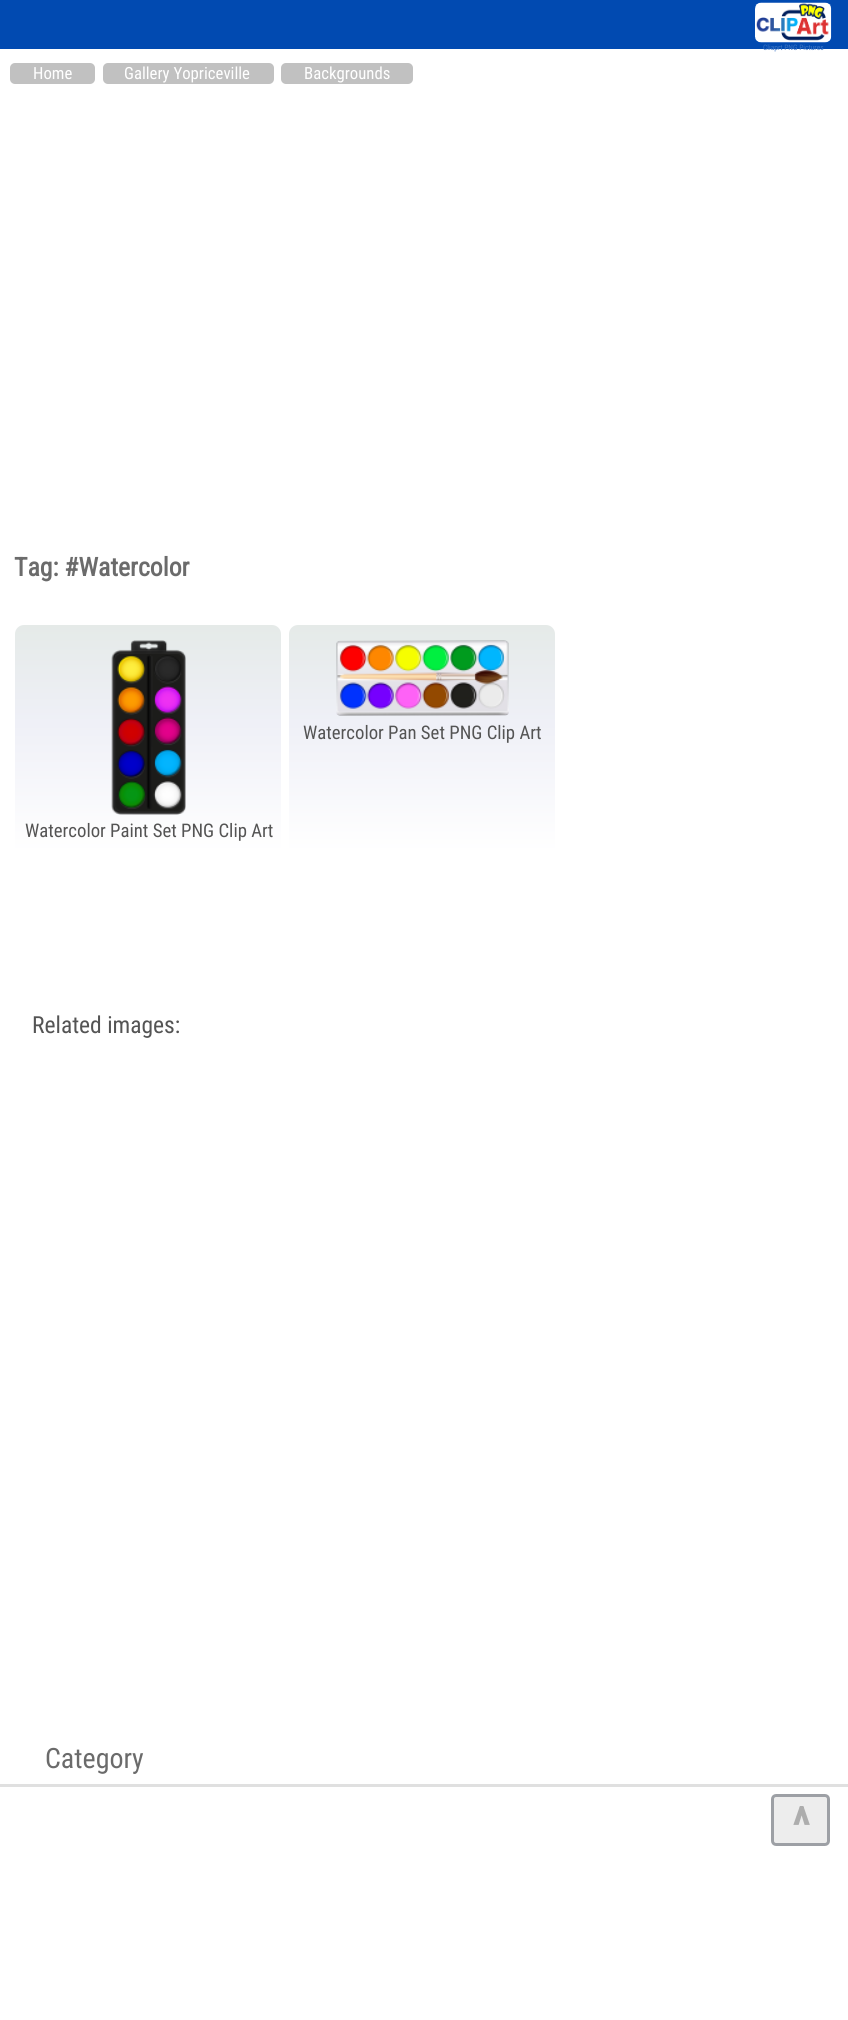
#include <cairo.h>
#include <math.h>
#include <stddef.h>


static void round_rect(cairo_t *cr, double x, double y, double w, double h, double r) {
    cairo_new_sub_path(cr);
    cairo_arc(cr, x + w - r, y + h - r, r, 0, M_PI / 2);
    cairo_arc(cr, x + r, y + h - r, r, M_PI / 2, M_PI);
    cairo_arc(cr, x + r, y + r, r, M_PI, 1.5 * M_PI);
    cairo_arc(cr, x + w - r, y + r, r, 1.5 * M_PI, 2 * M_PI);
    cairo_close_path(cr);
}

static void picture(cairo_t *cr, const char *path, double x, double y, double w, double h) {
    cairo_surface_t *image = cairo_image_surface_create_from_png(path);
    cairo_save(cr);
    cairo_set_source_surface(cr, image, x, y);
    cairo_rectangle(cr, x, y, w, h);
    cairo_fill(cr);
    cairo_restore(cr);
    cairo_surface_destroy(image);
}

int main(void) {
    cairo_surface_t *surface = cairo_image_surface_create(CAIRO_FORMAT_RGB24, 848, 2020);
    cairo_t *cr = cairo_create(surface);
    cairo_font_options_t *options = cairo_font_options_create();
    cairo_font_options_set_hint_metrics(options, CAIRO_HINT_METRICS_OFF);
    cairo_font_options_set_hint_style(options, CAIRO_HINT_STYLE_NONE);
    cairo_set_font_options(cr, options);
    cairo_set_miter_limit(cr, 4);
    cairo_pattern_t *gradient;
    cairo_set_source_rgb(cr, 0.004, 0.29, 0.694);
    cairo_paint(cr);
    cairo_set_source_rgb(cr, 1, 1, 1);
    cairo_rectangle(cr, 0, 49, 848, 1971);
    cairo_fill(cr);
    picture(cr, "img1.png", 755, 2, 77, 41);
    cairo_select_font_face(cr, "Roboto Condensed", CAIRO_FONT_SLANT_NORMAL, CAIRO_FONT_WEIGHT_NORMAL);
    cairo_set_font_size(cr, 7.5);
    cairo_set_source_rgb(cr, 0.235, 0.455, 0.765);
    cairo_move_to(cr, 763, 50);
    cairo_show_text(cr, "Cliaprt PNG Pictures");
    cairo_set_source_rgb(cr, 0.757, 0.757, 0.757);
    round_rect(cr, 10, 63, 85, 21, 5);
    cairo_fill(cr);
    cairo_set_font_size(cr, 16.75);
    cairo_set_source_rgb(cr, 1, 1, 1);
    cairo_move_to(cr, 33, 79);
    cairo_show_text(cr, "Home");
    cairo_set_source_rgb(cr, 0.757, 0.757, 0.757);
    round_rect(cr, 103, 63, 171, 21, 5);
    cairo_fill(cr);
    cairo_set_source_rgb(cr, 1, 1, 1);
    cairo_move_to(cr, 124, 79);
    cairo_show_text(cr, "Gallery Yopriceville");
    cairo_set_source_rgb(cr, 0.757, 0.757, 0.757);
    round_rect(cr, 281, 63, 132, 21, 5);
    cairo_fill(cr);
    cairo_set_source_rgb(cr, 1, 1, 1);
    cairo_move_to(cr, 304, 79);
    cairo_show_text(cr, "Backgrounds");
    cairo_select_font_face(cr, "Roboto Condensed", CAIRO_FONT_SLANT_NORMAL, CAIRO_FONT_WEIGHT_BOLD);
    cairo_set_font_size(cr, 25.75);
    cairo_set_source_rgb(cr, 0.42, 0.42, 0.42);
    cairo_move_to(cr, 14, 576);
    cairo_show_text(cr, "Tag: #Watercolor");
    gradient = cairo_pattern_create_linear(422, 625, 422, 883);
    cairo_pattern_add_color_stop_rgba(gradient, 0, 0.898, 0.918, 0.91, 1);
    cairo_pattern_add_color_stop_rgba(gradient, 0.38, 0.937, 0.941, 0.969, 1);
    cairo_pattern_add_color_stop_rgba(gradient, 0.88, 1, 1, 1, 1);
    cairo_set_source(cr, gradient);
    cairo_pattern_destroy(gradient);
    round_rect(cr, 289, 625, 266, 258, 9);
    cairo_fill(cr);
    picture(cr, "img2.png", 336, 640, 173, 76);
    cairo_select_font_face(cr, "Roboto Condensed", CAIRO_FONT_SLANT_NORMAL, CAIRO_FONT_WEIGHT_NORMAL);
    cairo_set_font_size(cr, 18.75);
    cairo_set_source_rgb(cr, 0.329, 0.329, 0.329);
    cairo_move_to(cr, 303, 739);
    cairo_show_text(cr, "Watercolor Pan Set PNG Clip Art");
    gradient = cairo_pattern_create_linear(148, 625, 148, 883);
    cairo_pattern_add_color_stop_rgba(gradient, 0, 0.898, 0.918, 0.91, 1);
    cairo_pattern_add_color_stop_rgba(gradient, 0.38, 0.937, 0.941, 0.969, 1);
    cairo_pattern_add_color_stop_rgba(gradient, 0.88, 1, 1, 1, 1);
    cairo_set_source(cr, gradient);
    cairo_pattern_destroy(gradient);
    round_rect(cr, 15, 625, 266, 258, 9);
    cairo_fill(cr);
    picture(cr, "img3.png", 111, 640, 75, 175);
    cairo_set_source_rgb(cr, 0.329, 0.329, 0.329);
    cairo_move_to(cr, 25, 837);
    cairo_show_text(cr, "Watercolor Paint Set PNG Clip Art");
    cairo_set_font_size(cr, 23.5);
    cairo_move_to(cr, 32, 1033);
    cairo_show_text(cr, "Related images:");
    cairo_set_source_rgb(cr, 0.878, 0.878, 0.878);
    cairo_rectangle(cr, 0, 1784, 848, 3);
    cairo_fill(cr);
    cairo_set_font_size(cr, 28);
    cairo_set_source_rgb(cr, 0.42, 0.42, 0.42);
    cairo_move_to(cr, 45, 1768);
    cairo_show_text(cr, "Category");
    cairo_set_source_rgb(cr, 0.929, 0.929, 0.929);
    round_rect(cr, 772.5, 1795.5, 56, 49, 3.5);
    cairo_fill_preserve(cr);
    cairo_set_source_rgb(cr, 0.616, 0.627, 0.647);
    cairo_set_line_width(cr, 3);
    cairo_stroke(cr);
    cairo_select_font_face(cr, "Roboto Condensed", CAIRO_FONT_SLANT_NORMAL, CAIRO_FONT_WEIGHT_BOLD);
    cairo_set_font_size(cr, 48);
    cairo_set_source_rgb(cr, 0.678, 0.678, 0.678);
    cairo_move_to(cr, 792, 1842);
    cairo_show_text(cr, "^");
    cairo_surface_write_to_png(surface, "page.png");
    cairo_font_options_destroy(options);
    cairo_destroy(cr);
    cairo_surface_destroy(surface);
    return 0;
}
